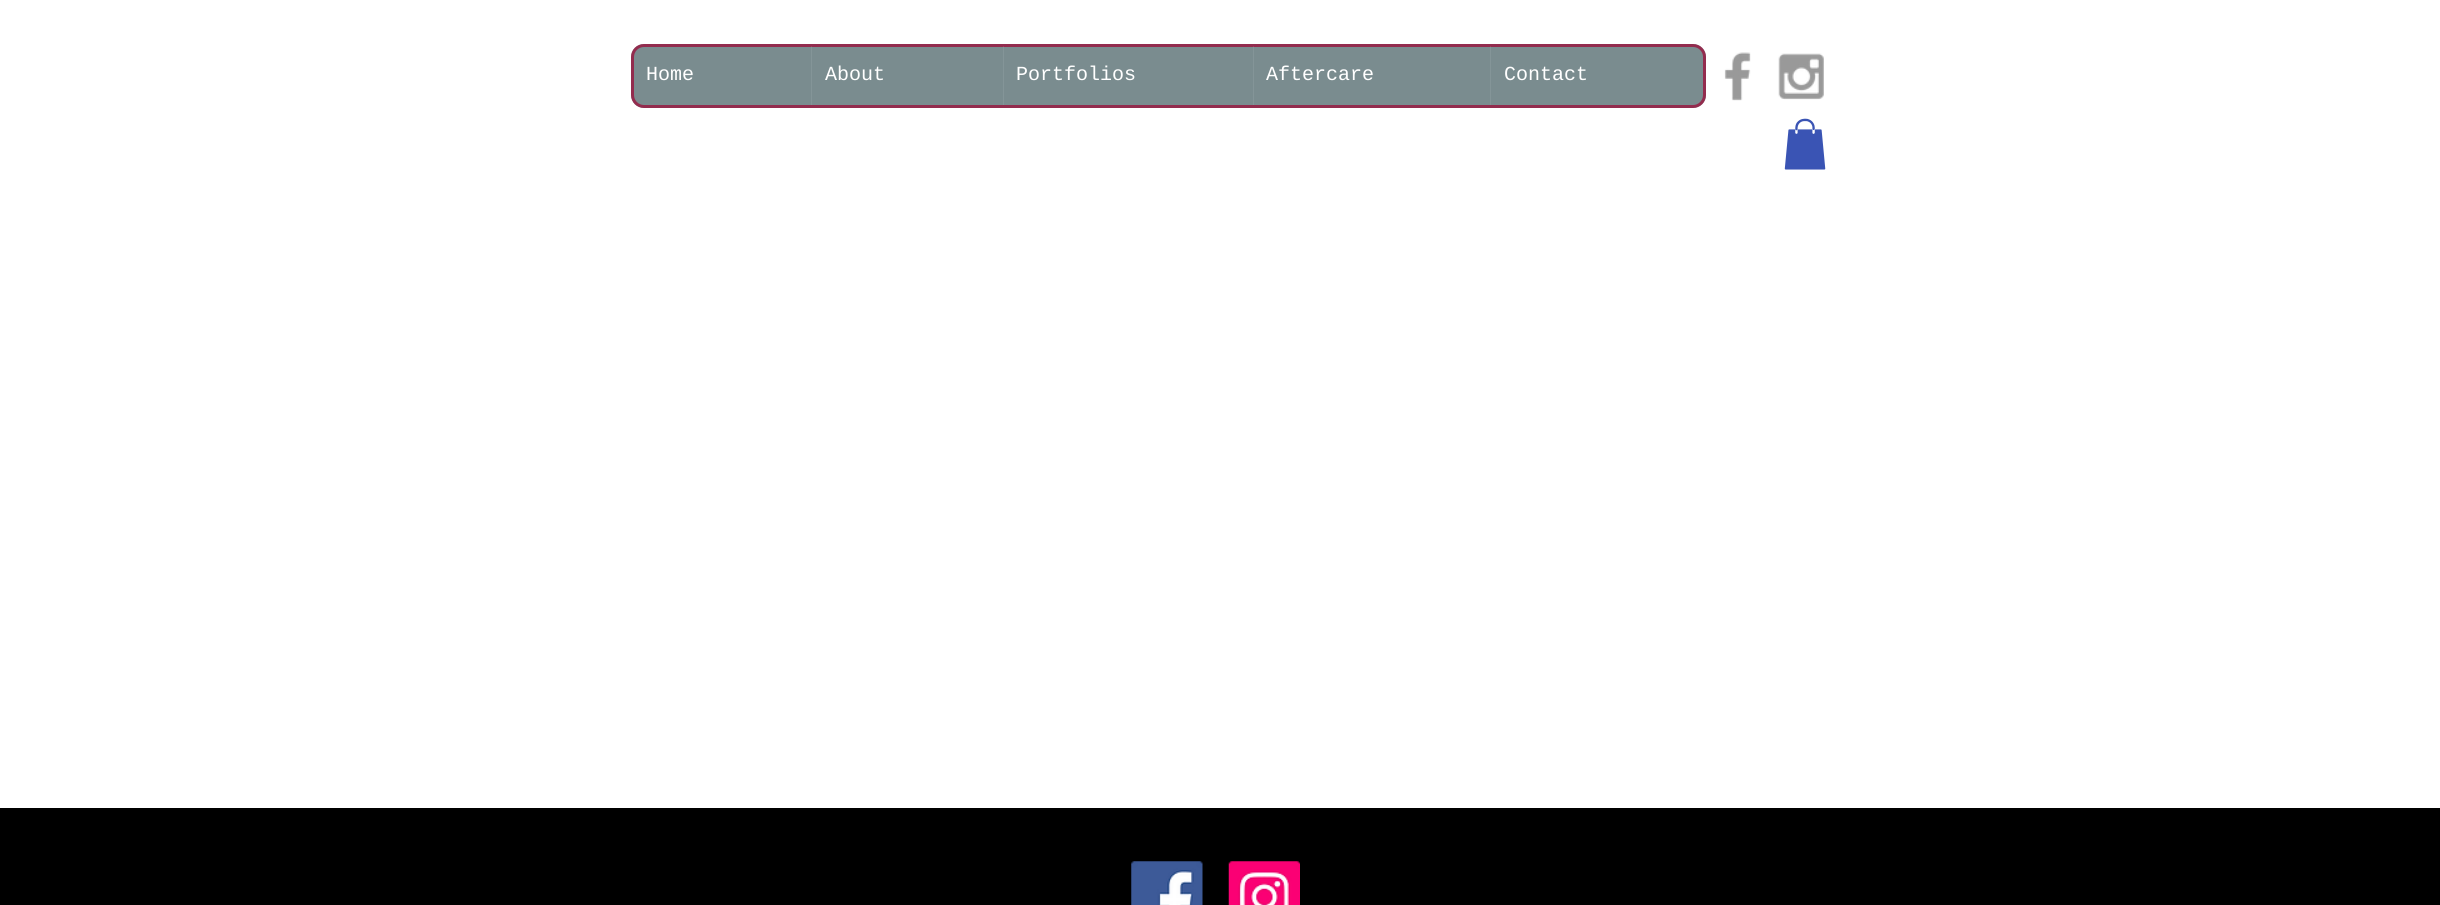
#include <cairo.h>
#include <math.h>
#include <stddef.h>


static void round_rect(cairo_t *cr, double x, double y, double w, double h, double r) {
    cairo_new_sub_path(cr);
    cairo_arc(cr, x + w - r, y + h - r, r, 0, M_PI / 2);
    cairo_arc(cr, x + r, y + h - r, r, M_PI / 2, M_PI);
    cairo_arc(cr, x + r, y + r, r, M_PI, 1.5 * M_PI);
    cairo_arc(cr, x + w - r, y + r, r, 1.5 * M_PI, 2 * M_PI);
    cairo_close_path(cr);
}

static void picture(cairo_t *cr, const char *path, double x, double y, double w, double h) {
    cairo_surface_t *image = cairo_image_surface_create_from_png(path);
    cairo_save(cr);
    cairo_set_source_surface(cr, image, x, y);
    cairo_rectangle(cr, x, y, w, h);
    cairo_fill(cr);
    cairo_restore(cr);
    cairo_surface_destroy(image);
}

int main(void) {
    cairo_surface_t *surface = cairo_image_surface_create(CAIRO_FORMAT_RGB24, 2440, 905);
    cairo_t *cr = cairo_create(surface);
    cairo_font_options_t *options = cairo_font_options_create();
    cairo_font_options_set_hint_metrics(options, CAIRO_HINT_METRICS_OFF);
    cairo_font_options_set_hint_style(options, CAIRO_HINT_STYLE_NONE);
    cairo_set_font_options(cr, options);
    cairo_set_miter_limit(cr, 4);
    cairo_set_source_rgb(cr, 1, 1, 1);
    cairo_paint(cr);
    cairo_set_source_rgb(cr, 0.478, 0.549, 0.561);
    round_rect(cr, 631, 44, 1075, 64, 13);
    cairo_fill(cr);
    round_rect(cr, 632.5, 45.5, 1072, 61, 11.5);
    cairo_set_source_rgba(cr, 0.62, 0.016, 0.2, 0.7);
    cairo_set_line_width(cr, 3);
    cairo_stroke(cr);
    cairo_select_font_face(cr, "Liberation Mono", CAIRO_FONT_SLANT_NORMAL, CAIRO_FONT_WEIGHT_NORMAL);
    cairo_set_font_size(cr, 20);
    cairo_set_source_rgb(cr, 1, 1, 1);
    cairo_move_to(cr, 646, 80);
    cairo_show_text(cr, "Home");
    cairo_set_source_rgba(cr, 1, 1, 1, 0.08);
    cairo_rectangle(cr, 811, 46, 1, 59);
    cairo_fill(cr);
    cairo_set_source_rgb(cr, 1, 1, 1);
    cairo_move_to(cr, 825, 80);
    cairo_show_text(cr, "About");
    cairo_set_source_rgba(cr, 1, 1, 1, 0.08);
    cairo_rectangle(cr, 1003, 46, 1, 59);
    cairo_fill(cr);
    cairo_set_source_rgb(cr, 1, 1, 1);
    cairo_move_to(cr, 1016, 80);
    cairo_show_text(cr, "Portfolios");
    cairo_set_source_rgba(cr, 1, 1, 1, 0.08);
    cairo_rectangle(cr, 1253, 46, 1, 59);
    cairo_fill(cr);
    cairo_set_source_rgb(cr, 1, 1, 1);
    cairo_move_to(cr, 1266, 80);
    cairo_show_text(cr, "Aftercare");
    cairo_set_source_rgba(cr, 1, 1, 1, 0.08);
    cairo_rectangle(cr, 1490, 46, 1, 59);
    cairo_fill(cr);
    cairo_set_source_rgb(cr, 1, 1, 1);
    cairo_move_to(cr, 1504, 80);
    cairo_show_text(cr, "Contact");
    picture(cr, "img1.png", 1724, 52, 27, 49);
    picture(cr, "img2.png", 1778, 53, 46, 47);
    picture(cr, "img3.png", 1784, 118, 42, 52);
    cairo_set_source_rgb(cr, 0, 0, 0);
    cairo_rectangle(cr, 0, 808, 2440, 97);
    cairo_fill(cr);
    picture(cr, "img4.png", 1131, 861, 72, 44);
    picture(cr, "img5.png", 1228, 861, 72, 44);
    cairo_surface_write_to_png(surface, "page.png");
    cairo_font_options_destroy(options);
    cairo_destroy(cr);
    cairo_surface_destroy(surface);
    return 0;
}
